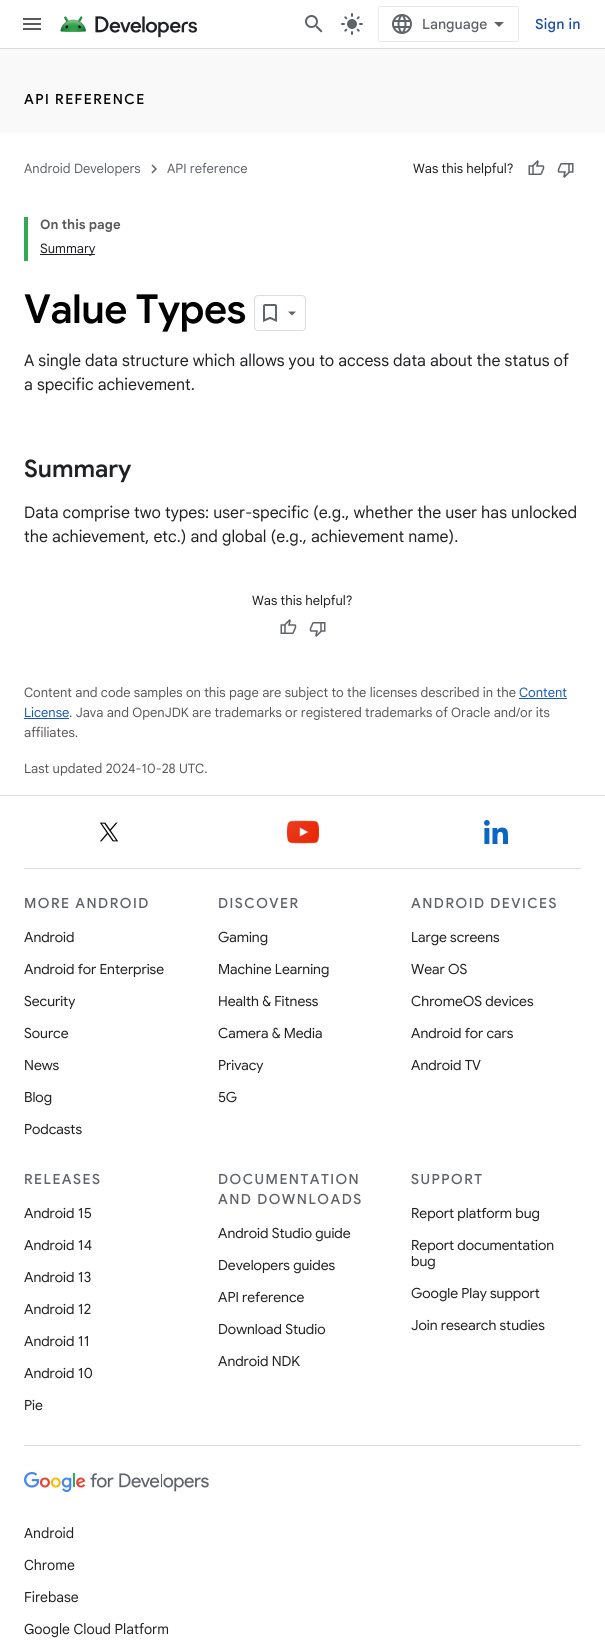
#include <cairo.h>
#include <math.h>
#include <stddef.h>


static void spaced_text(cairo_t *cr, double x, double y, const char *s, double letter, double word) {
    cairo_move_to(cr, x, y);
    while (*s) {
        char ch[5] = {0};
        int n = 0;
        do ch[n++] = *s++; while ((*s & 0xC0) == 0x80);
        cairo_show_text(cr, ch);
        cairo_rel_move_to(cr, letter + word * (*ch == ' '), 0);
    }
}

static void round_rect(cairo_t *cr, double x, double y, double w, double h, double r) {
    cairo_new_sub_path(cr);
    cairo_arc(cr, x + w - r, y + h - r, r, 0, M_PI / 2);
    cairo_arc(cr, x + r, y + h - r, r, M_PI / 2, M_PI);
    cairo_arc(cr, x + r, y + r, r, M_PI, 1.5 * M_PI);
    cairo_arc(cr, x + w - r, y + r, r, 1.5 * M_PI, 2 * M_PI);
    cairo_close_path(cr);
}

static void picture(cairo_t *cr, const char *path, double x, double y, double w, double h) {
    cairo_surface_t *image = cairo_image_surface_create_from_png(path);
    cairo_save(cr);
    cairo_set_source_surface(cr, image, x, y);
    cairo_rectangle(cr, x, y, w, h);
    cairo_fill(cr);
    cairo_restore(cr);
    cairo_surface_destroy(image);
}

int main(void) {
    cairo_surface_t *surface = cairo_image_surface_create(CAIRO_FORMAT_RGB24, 605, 1641);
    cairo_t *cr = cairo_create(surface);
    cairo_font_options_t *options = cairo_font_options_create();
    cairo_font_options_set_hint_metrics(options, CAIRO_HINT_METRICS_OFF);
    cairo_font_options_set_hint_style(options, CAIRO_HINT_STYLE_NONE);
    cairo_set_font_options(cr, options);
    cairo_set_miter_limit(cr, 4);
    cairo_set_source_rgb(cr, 1, 1, 1);
    cairo_paint(cr);
    cairo_set_source_rgb(cr, 0.855, 0.863, 0.878);
    cairo_rectangle(cr, 0, 48, 605, 1);
    cairo_fill(cr);
    picture(cr, "img1.png", 23, 18, 18, 12);
    picture(cr, "img2.png", 60, 16, 137, 22);
    picture(cr, "img3.png", 305, 15, 18, 18);
    picture(cr, "img4.png", 341, 13, 22, 22);
    round_rect(cr, 378.5, 6.5, 140, 35, 1.5);
    cairo_set_source_rgb(cr, 0.91, 0.918, 0.929);
    cairo_set_line_width(cr, 1);
    cairo_stroke(cr);
    picture(cr, "img5.png", 392, 14, 20, 20);
    cairo_select_font_face(cr, "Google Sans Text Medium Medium", CAIRO_FONT_SLANT_NORMAL, CAIRO_FONT_WEIGHT_NORMAL);
    cairo_set_font_size(cr, 14);
    cairo_set_source_rgb(cr, 0.373, 0.388, 0.408);
    cairo_move_to(cr, 422, 29);
    cairo_show_text(cr, "Language");
    cairo_new_path(cr);
    cairo_move_to(cr, 499, 27);
    cairo_line_to(cr, 494, 22);
    cairo_line_to(cr, 504, 22);
    cairo_close_path(cr);
    cairo_fill(cr);
    cairo_set_source_rgb(cr, 0.09, 0.306, 0.651);
    spaced_text(cr, 535, 29, "Sign in", 0.25, 0);
    cairo_set_source_rgb(cr, 0.973, 0.976, 0.98);
    cairo_rectangle(cr, 0, 49, 605, 84);
    cairo_fill(cr);
    cairo_select_font_face(cr, "Google Sans Medium", CAIRO_FONT_SLANT_NORMAL, CAIRO_FONT_WEIGHT_NORMAL);
    cairo_set_source_rgb(cr, 0, 0, 0);
    spaced_text(cr, 24, 104, "API REFERENCE", 1.5, 0);
    cairo_select_font_face(cr, "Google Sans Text", CAIRO_FONT_SLANT_NORMAL, CAIRO_FONT_WEIGHT_NORMAL);
    cairo_set_font_size(cr, 13);
    cairo_set_source_rgb(cr, 0.373, 0.388, 0.408);
    cairo_move_to(cr, 24, 173);
    cairo_show_text(cr, "Android Developers");
    picture(cr, "img6.png", 151, 164, 6, 10);
    cairo_move_to(cr, 167, 173);
    cairo_show_text(cr, "API reference");
    cairo_set_source_rgb(cr, 0.125, 0.129, 0.141);
    cairo_move_to(cr, 413, 173);
    cairo_show_text(cr, "Was this helpful?");
    picture(cr, "img7.png", 528, 160, 17, 15);
    picture(cr, "img8.png", 557, 163, 17, 15);
    cairo_set_source_rgb(cr, 0.204, 0.659, 0.325);
    cairo_rectangle(cr, 24, 217, 4, 44);
    cairo_fill(cr);
    cairo_select_font_face(cr, "Google Sans Text", CAIRO_FONT_SLANT_NORMAL, CAIRO_FONT_WEIGHT_BOLD);
    cairo_set_source_rgb(cr, 0.349, 0.349, 0.349);
    cairo_move_to(cr, 40, 229);
    cairo_show_text(cr, "On this page");
    cairo_set_source_rgb(cr, 0.125, 0.129, 0.141);
    cairo_rectangle(cr, 40, 254, 55, 1);
    cairo_fill(cr);
    cairo_select_font_face(cr, "Google Sans Text", CAIRO_FONT_SLANT_NORMAL, CAIRO_FONT_WEIGHT_NORMAL);
    cairo_move_to(cr, 40, 253);
    cairo_show_text(cr, "Summary");
    cairo_select_font_face(cr, "Google Sans SemiBold", CAIRO_FONT_SLANT_NORMAL, CAIRO_FONT_WEIGHT_NORMAL);
    cairo_set_font_size(cr, 40);
    cairo_set_source_rgb(cr, 0, 0, 0);
    spaced_text(cr, 24, 323, "Value Types", -0.5, 0);
    round_rect(cr, 254.5, 295.5, 51, 35, 3.5);
    cairo_set_source_rgb(cr, 0.855, 0.863, 0.878);
    cairo_stroke(cr);
    picture(cr, "img9.png", 263, 304, 14, 18);
    cairo_set_source_rgb(cr, 0.373, 0.388, 0.408);
    cairo_new_path(cr);
    cairo_move_to(cr, 288, 311.5);
    cairo_line_to(cr, 296, 311.5);
    cairo_line_to(cr, 292, 315.5);
    cairo_close_path(cr);
    cairo_fill(cr);
    cairo_select_font_face(cr, "Google Sans Text", CAIRO_FONT_SLANT_NORMAL, CAIRO_FONT_WEIGHT_NORMAL);
    cairo_set_font_size(cr, 16);
    cairo_set_source_rgb(cr, 0.125, 0.129, 0.141);
    cairo_move_to(cr, 24, 366);
    cairo_show_text(cr, "A single data structure which allows you to access data about the status of");
    cairo_move_to(cr, 24, 390);
    cairo_show_text(cr, "a specific achievement.");
    cairo_select_font_face(cr, "Google Sans SemiBold", CAIRO_FONT_SLANT_NORMAL, CAIRO_FONT_WEIGHT_NORMAL);
    cairo_set_font_size(cr, 24);
    cairo_move_to(cr, 24, 477);
    cairo_show_text(cr, "Summary");
    cairo_select_font_face(cr, "Google Sans Text", CAIRO_FONT_SLANT_NORMAL, CAIRO_FONT_WEIGHT_NORMAL);
    cairo_set_font_size(cr, 16);
    cairo_move_to(cr, 24, 518);
    cairo_show_text(cr, "Data comprise two types: user-specific (e.g., whether the user has unlocked");
    cairo_move_to(cr, 24, 542);
    cairo_show_text(cr, "the achievement, etc.) and global (e.g., achievement name).");
    cairo_set_font_size(cr, 13);
    cairo_move_to(cr, 252, 605);
    cairo_show_text(cr, "Was this helpful?");
    picture(cr, "img7.png", 280, 619, 17, 15);
    picture(cr, "img8.png", 309, 622, 17, 15);
    cairo_set_source_rgb(cr, 0.349, 0.349, 0.349);
    cairo_move_to(cr, 24, 697);
    cairo_show_text(cr, "Content and code samples on this page are subject to the licenses described in the");
    cairo_set_source_rgb(cr, 0.094, 0.353, 0.737);
    cairo_move_to(cr, 519, 697);
    cairo_show_text(cr, "Content");
    cairo_rectangle(cr, 519, 698, 48, 1);
    cairo_fill(cr);
    cairo_move_to(cr, 24, 717);
    cairo_show_text(cr, "License");
    cairo_rectangle(cr, 24, 718, 45, 1);
    cairo_fill(cr);
    cairo_set_source_rgb(cr, 0.349, 0.349, 0.349);
    cairo_move_to(cr, 69, 717);
    cairo_show_text(cr, ". Java and OpenJDK are trademarks or registered trademarks of Oracle and/or its");
    cairo_move_to(cr, 24, 737);
    cairo_show_text(cr, "affiliates.");
    cairo_move_to(cr, 24, 773);
    cairo_show_text(cr, "Last updated 2024-10-28 UTC.");
    cairo_set_source_rgb(cr, 0.855, 0.863, 0.878);
    cairo_rectangle(cr, 0, 795, 605, 1);
    cairo_fill(cr);
    cairo_rectangle(cr, 24, 868, 557, 1);
    cairo_fill(cr);
    picture(cr, "img10.png", 99, 822, 20, 20);
    picture(cr, "img11.png", 287, 820, 32, 24);
    picture(cr, "img12.png", 484, 820, 24, 24);
    cairo_rectangle(cr, 24, 1445, 557, 1);
    cairo_fill(cr);
    cairo_select_font_face(cr, "Google Sans Medium", CAIRO_FONT_SLANT_NORMAL, CAIRO_FONT_WEIGHT_NORMAL);
    cairo_set_font_size(cr, 14);
    cairo_set_source_rgb(cr, 0.373, 0.388, 0.408);
    spaced_text(cr, 24, 908, "MORE ANDROID", 1.5, 0);
    cairo_select_font_face(cr, "Google Sans", CAIRO_FONT_SLANT_NORMAL, CAIRO_FONT_WEIGHT_NORMAL);
    cairo_set_source_rgb(cr, 0.125, 0.129, 0.141);
    cairo_move_to(cr, 24, 942);
    cairo_show_text(cr, "Android");
    cairo_move_to(cr, 24, 974);
    cairo_show_text(cr, "Android for Enterprise");
    cairo_move_to(cr, 24, 1006);
    cairo_show_text(cr, "Security");
    cairo_move_to(cr, 24, 1038);
    cairo_show_text(cr, "Source");
    cairo_move_to(cr, 24, 1070);
    cairo_show_text(cr, "News");
    cairo_move_to(cr, 24, 1102);
    cairo_show_text(cr, "Blog");
    cairo_move_to(cr, 24, 1134);
    cairo_show_text(cr, "Podcasts");
    cairo_select_font_face(cr, "Google Sans Medium", CAIRO_FONT_SLANT_NORMAL, CAIRO_FONT_WEIGHT_NORMAL);
    cairo_set_source_rgb(cr, 0.373, 0.388, 0.408);
    spaced_text(cr, 218, 908, "DISCOVER", 1.5, 0);
    cairo_select_font_face(cr, "Google Sans", CAIRO_FONT_SLANT_NORMAL, CAIRO_FONT_WEIGHT_NORMAL);
    cairo_set_source_rgb(cr, 0.125, 0.129, 0.141);
    cairo_move_to(cr, 218, 942);
    cairo_show_text(cr, "Gaming");
    cairo_move_to(cr, 218, 974);
    cairo_show_text(cr, "Machine Learning");
    cairo_move_to(cr, 218, 1006);
    cairo_show_text(cr, "Health & Fitness");
    cairo_move_to(cr, 218, 1038);
    cairo_show_text(cr, "Camera & Media");
    cairo_move_to(cr, 218, 1070);
    cairo_show_text(cr, "Privacy");
    cairo_move_to(cr, 218, 1102);
    cairo_show_text(cr, "5G");
    cairo_select_font_face(cr, "Google Sans Medium", CAIRO_FONT_SLANT_NORMAL, CAIRO_FONT_WEIGHT_NORMAL);
    cairo_set_source_rgb(cr, 0.373, 0.388, 0.408);
    spaced_text(cr, 411, 908, "ANDROID DEVICES", 1.5, 0);
    cairo_select_font_face(cr, "Google Sans", CAIRO_FONT_SLANT_NORMAL, CAIRO_FONT_WEIGHT_NORMAL);
    cairo_set_source_rgb(cr, 0.125, 0.129, 0.141);
    cairo_move_to(cr, 411, 942);
    cairo_show_text(cr, "Large screens");
    cairo_move_to(cr, 411, 974);
    cairo_show_text(cr, "Wear OS");
    cairo_move_to(cr, 411, 1006);
    cairo_show_text(cr, "ChromeOS devices");
    cairo_move_to(cr, 411, 1038);
    cairo_show_text(cr, "Android for cars");
    cairo_move_to(cr, 411, 1070);
    cairo_show_text(cr, "Android TV");
    cairo_select_font_face(cr, "Google Sans Medium", CAIRO_FONT_SLANT_NORMAL, CAIRO_FONT_WEIGHT_NORMAL);
    cairo_set_source_rgb(cr, 0.373, 0.388, 0.408);
    spaced_text(cr, 24, 1184, "RELEASES", 1.5, 0);
    cairo_select_font_face(cr, "Google Sans", CAIRO_FONT_SLANT_NORMAL, CAIRO_FONT_WEIGHT_NORMAL);
    cairo_set_source_rgb(cr, 0.125, 0.129, 0.141);
    cairo_move_to(cr, 24, 1218);
    cairo_show_text(cr, "Android 15");
    cairo_move_to(cr, 24, 1250);
    cairo_show_text(cr, "Android 14");
    cairo_move_to(cr, 24, 1282);
    cairo_show_text(cr, "Android 13");
    cairo_move_to(cr, 24, 1314);
    cairo_show_text(cr, "Android 12");
    cairo_move_to(cr, 24, 1346);
    cairo_show_text(cr, "Android 11");
    cairo_move_to(cr, 24, 1378);
    cairo_show_text(cr, "Android 10");
    cairo_move_to(cr, 24, 1410);
    cairo_show_text(cr, "Pie");
    cairo_select_font_face(cr, "Google Sans Medium", CAIRO_FONT_SLANT_NORMAL, CAIRO_FONT_WEIGHT_NORMAL);
    cairo_set_source_rgb(cr, 0.373, 0.388, 0.408);
    spaced_text(cr, 218, 1184, "DOCUMENTATION", 1.5, 0);
    spaced_text(cr, 218, 1204, "AND DOWNLOADS", 1.5, 0);
    cairo_select_font_face(cr, "Google Sans", CAIRO_FONT_SLANT_NORMAL, CAIRO_FONT_WEIGHT_NORMAL);
    cairo_set_source_rgb(cr, 0.125, 0.129, 0.141);
    cairo_move_to(cr, 218, 1238);
    cairo_show_text(cr, "Android Studio guide");
    cairo_move_to(cr, 218, 1270);
    cairo_show_text(cr, "Developers guides");
    cairo_move_to(cr, 218, 1302);
    cairo_show_text(cr, "API reference");
    cairo_move_to(cr, 218, 1334);
    cairo_show_text(cr, "Download Studio");
    cairo_move_to(cr, 218, 1366);
    cairo_show_text(cr, "Android NDK");
    cairo_select_font_face(cr, "Google Sans Medium", CAIRO_FONT_SLANT_NORMAL, CAIRO_FONT_WEIGHT_NORMAL);
    cairo_set_source_rgb(cr, 0.373, 0.388, 0.408);
    spaced_text(cr, 411, 1184, "SUPPORT", 1.5, 0);
    cairo_select_font_face(cr, "Google Sans", CAIRO_FONT_SLANT_NORMAL, CAIRO_FONT_WEIGHT_NORMAL);
    cairo_set_source_rgb(cr, 0.125, 0.129, 0.141);
    cairo_move_to(cr, 411, 1218);
    cairo_show_text(cr, "Report platform bug");
    cairo_move_to(cr, 411, 1250);
    cairo_show_text(cr, "Report documentation");
    cairo_move_to(cr, 411, 1266);
    cairo_show_text(cr, "bug");
    cairo_move_to(cr, 411, 1298);
    cairo_show_text(cr, "Google Play support");
    cairo_move_to(cr, 411, 1330);
    cairo_show_text(cr, "Join research studies");
    picture(cr, "img13.png", 24, 1472, 185, 20);
    cairo_select_font_face(cr, "Google Sans Text", CAIRO_FONT_SLANT_NORMAL, CAIRO_FONT_WEIGHT_NORMAL);
    cairo_move_to(cr, 24, 1538);
    cairo_show_text(cr, "Android");
    cairo_move_to(cr, 24, 1570);
    cairo_show_text(cr, "Chrome");
    cairo_move_to(cr, 24, 1602);
    cairo_show_text(cr, "Firebase");
    cairo_move_to(cr, 24, 1634);
    cairo_show_text(cr, "Google Cloud Platform");
    cairo_surface_write_to_png(surface, "page.png");
    cairo_font_options_destroy(options);
    cairo_destroy(cr);
    cairo_surface_destroy(surface);
    return 0;
}
